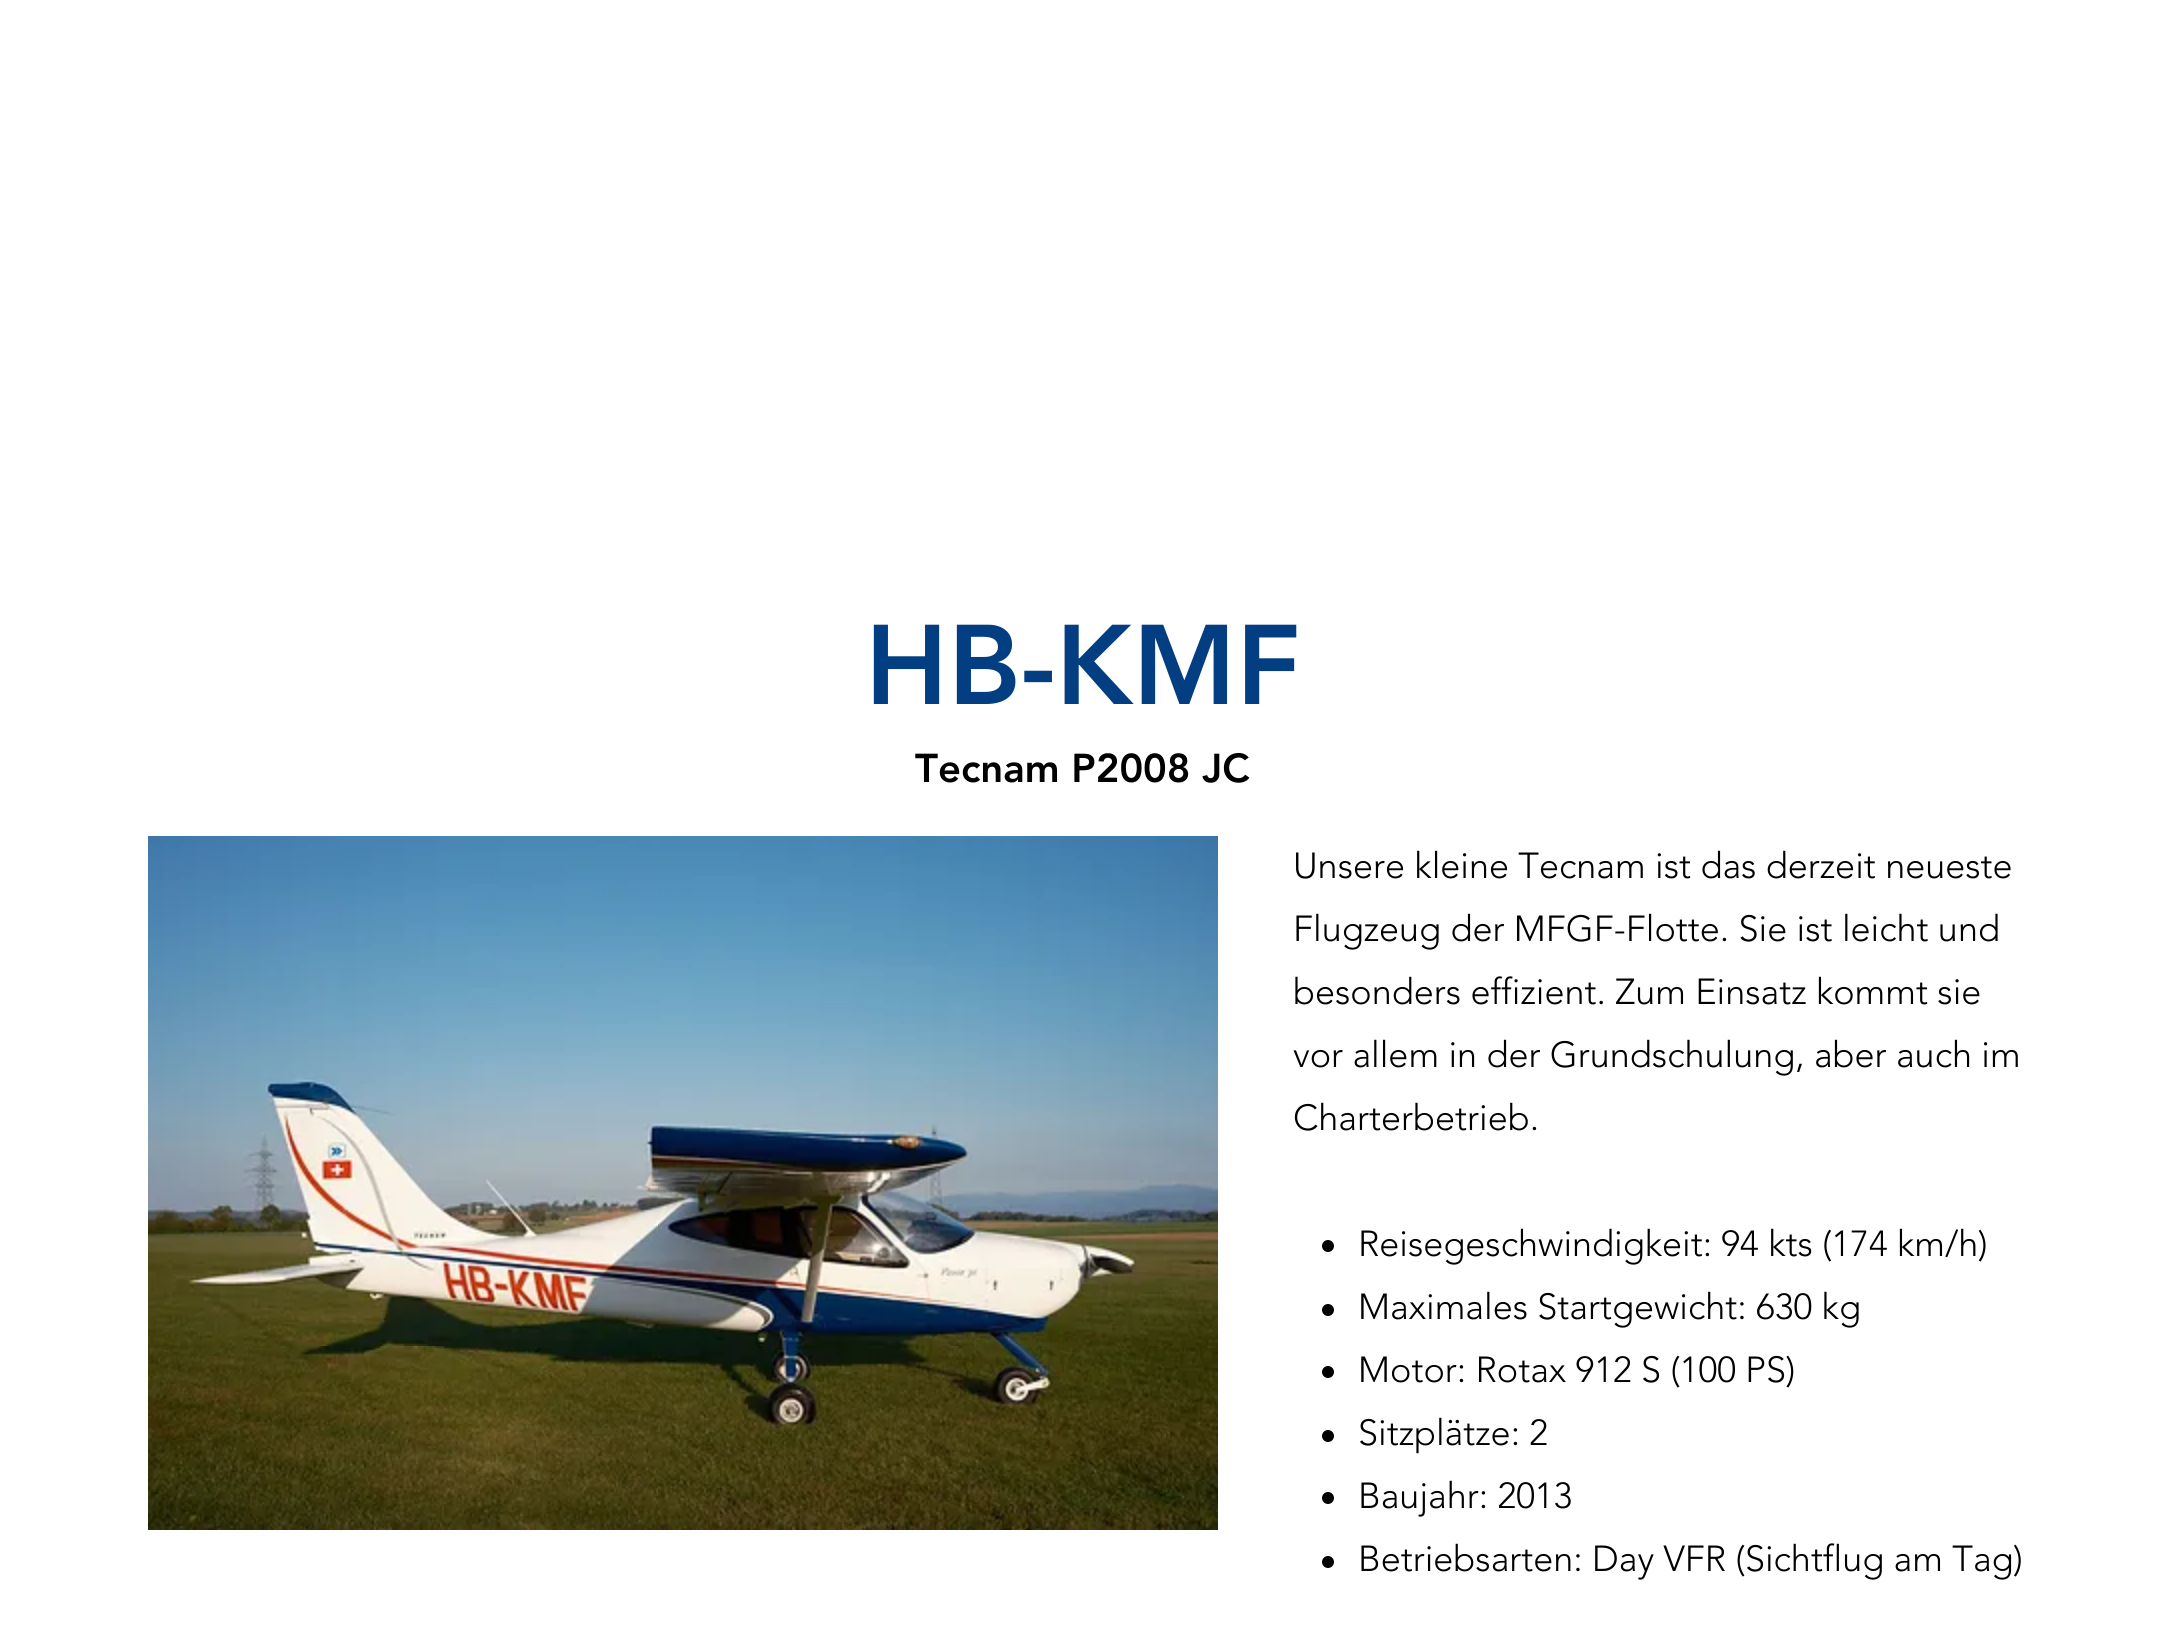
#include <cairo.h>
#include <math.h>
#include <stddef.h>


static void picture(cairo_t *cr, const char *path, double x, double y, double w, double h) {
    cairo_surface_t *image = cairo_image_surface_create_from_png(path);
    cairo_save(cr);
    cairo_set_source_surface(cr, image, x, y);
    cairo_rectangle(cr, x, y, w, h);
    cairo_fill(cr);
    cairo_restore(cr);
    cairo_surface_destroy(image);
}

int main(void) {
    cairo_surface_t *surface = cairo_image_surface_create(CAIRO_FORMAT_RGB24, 2165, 1645);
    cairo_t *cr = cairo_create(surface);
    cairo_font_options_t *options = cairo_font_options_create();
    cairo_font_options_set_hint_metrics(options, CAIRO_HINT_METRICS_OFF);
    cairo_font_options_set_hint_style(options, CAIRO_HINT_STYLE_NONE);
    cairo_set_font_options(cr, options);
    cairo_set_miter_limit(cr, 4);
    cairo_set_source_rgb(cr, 1, 1, 1);
    cairo_paint(cr);
    cairo_select_font_face(cr, "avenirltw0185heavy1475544 Black", CAIRO_FONT_SLANT_NORMAL, CAIRO_FONT_WEIGHT_NORMAL);
    cairo_set_font_size(cr, 112);
    cairo_set_source_rgb(cr, 0.008, 0.243, 0.506);
    cairo_move_to(cr, 865, 704);
    cairo_show_text(cr, "HB-KMF");
    cairo_set_font_size(cr, 40);
    cairo_set_source_rgb(cr, 0, 0, 0);
    cairo_move_to(cr, 915, 782);
    cairo_show_text(cr, "Tecnam P2008 JC");
    picture(cr, "img1.png", 148, 836, 1070, 694);
    cairo_select_font_face(cr, "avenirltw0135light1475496 Light", CAIRO_FONT_SLANT_NORMAL, CAIRO_FONT_WEIGHT_NORMAL);
    cairo_set_font_size(cr, 36);
    cairo_move_to(cr, 1293, 878);
    cairo_show_text(cr, "Unsere kleine Tecnam ist das derzeit neueste");
    cairo_move_to(cr, 1293, 941);
    cairo_show_text(cr, "Flugzeug der MFGF-Flotte. Sie ist leicht und");
    cairo_move_to(cr, 1293, 1004);
    cairo_show_text(cr, "besonders effizient. Zum Einsatz kommt sie");
    cairo_move_to(cr, 1293, 1067);
    cairo_show_text(cr, "vor allem in der Grundschulung, aber auch im");
    cairo_move_to(cr, 1293, 1130);
    cairo_show_text(cr, "Charterbetrieb.");
    cairo_new_path(cr);
    cairo_arc(cr, 1328, 1246, 6, 0, 2 * M_PI);
    cairo_fill(cr);
    cairo_move_to(cr, 1358, 1256);
    cairo_show_text(cr, "Reisegeschwindigkeit: 94 kts (174 km/h)");
    cairo_new_path(cr);
    cairo_arc(cr, 1328, 1310, 6, 0, 2 * M_PI);
    cairo_fill(cr);
    cairo_move_to(cr, 1358, 1319);
    cairo_show_text(cr, "Maximales Startgewicht: 630 kg");
    cairo_new_path(cr);
    cairo_arc(cr, 1328, 1372, 6, 0, 2 * M_PI);
    cairo_fill(cr);
    cairo_move_to(cr, 1358, 1382);
    cairo_show_text(cr, "Motor: Rotax 912 S (100 PS)");
    cairo_new_path(cr);
    cairo_arc(cr, 1328, 1436, 6, 0, 2 * M_PI);
    cairo_fill(cr);
    cairo_move_to(cr, 1358, 1445);
    cairo_show_text(cr, "Sitzplätze: 2");
    cairo_new_path(cr);
    cairo_arc(cr, 1328, 1498, 6, 0, 2 * M_PI);
    cairo_fill(cr);
    cairo_move_to(cr, 1358, 1508);
    cairo_show_text(cr, "Baujahr: 2013");
    cairo_new_path(cr);
    cairo_arc(cr, 1328, 1562, 6, 0, 2 * M_PI);
    cairo_fill(cr);
    cairo_move_to(cr, 1358, 1571);
    cairo_show_text(cr, "Betriebsarten: Day VFR (Sichtflug am Tag)");
    cairo_surface_write_to_png(surface, "page.png");
    cairo_font_options_destroy(options);
    cairo_destroy(cr);
    cairo_surface_destroy(surface);
    return 0;
}
